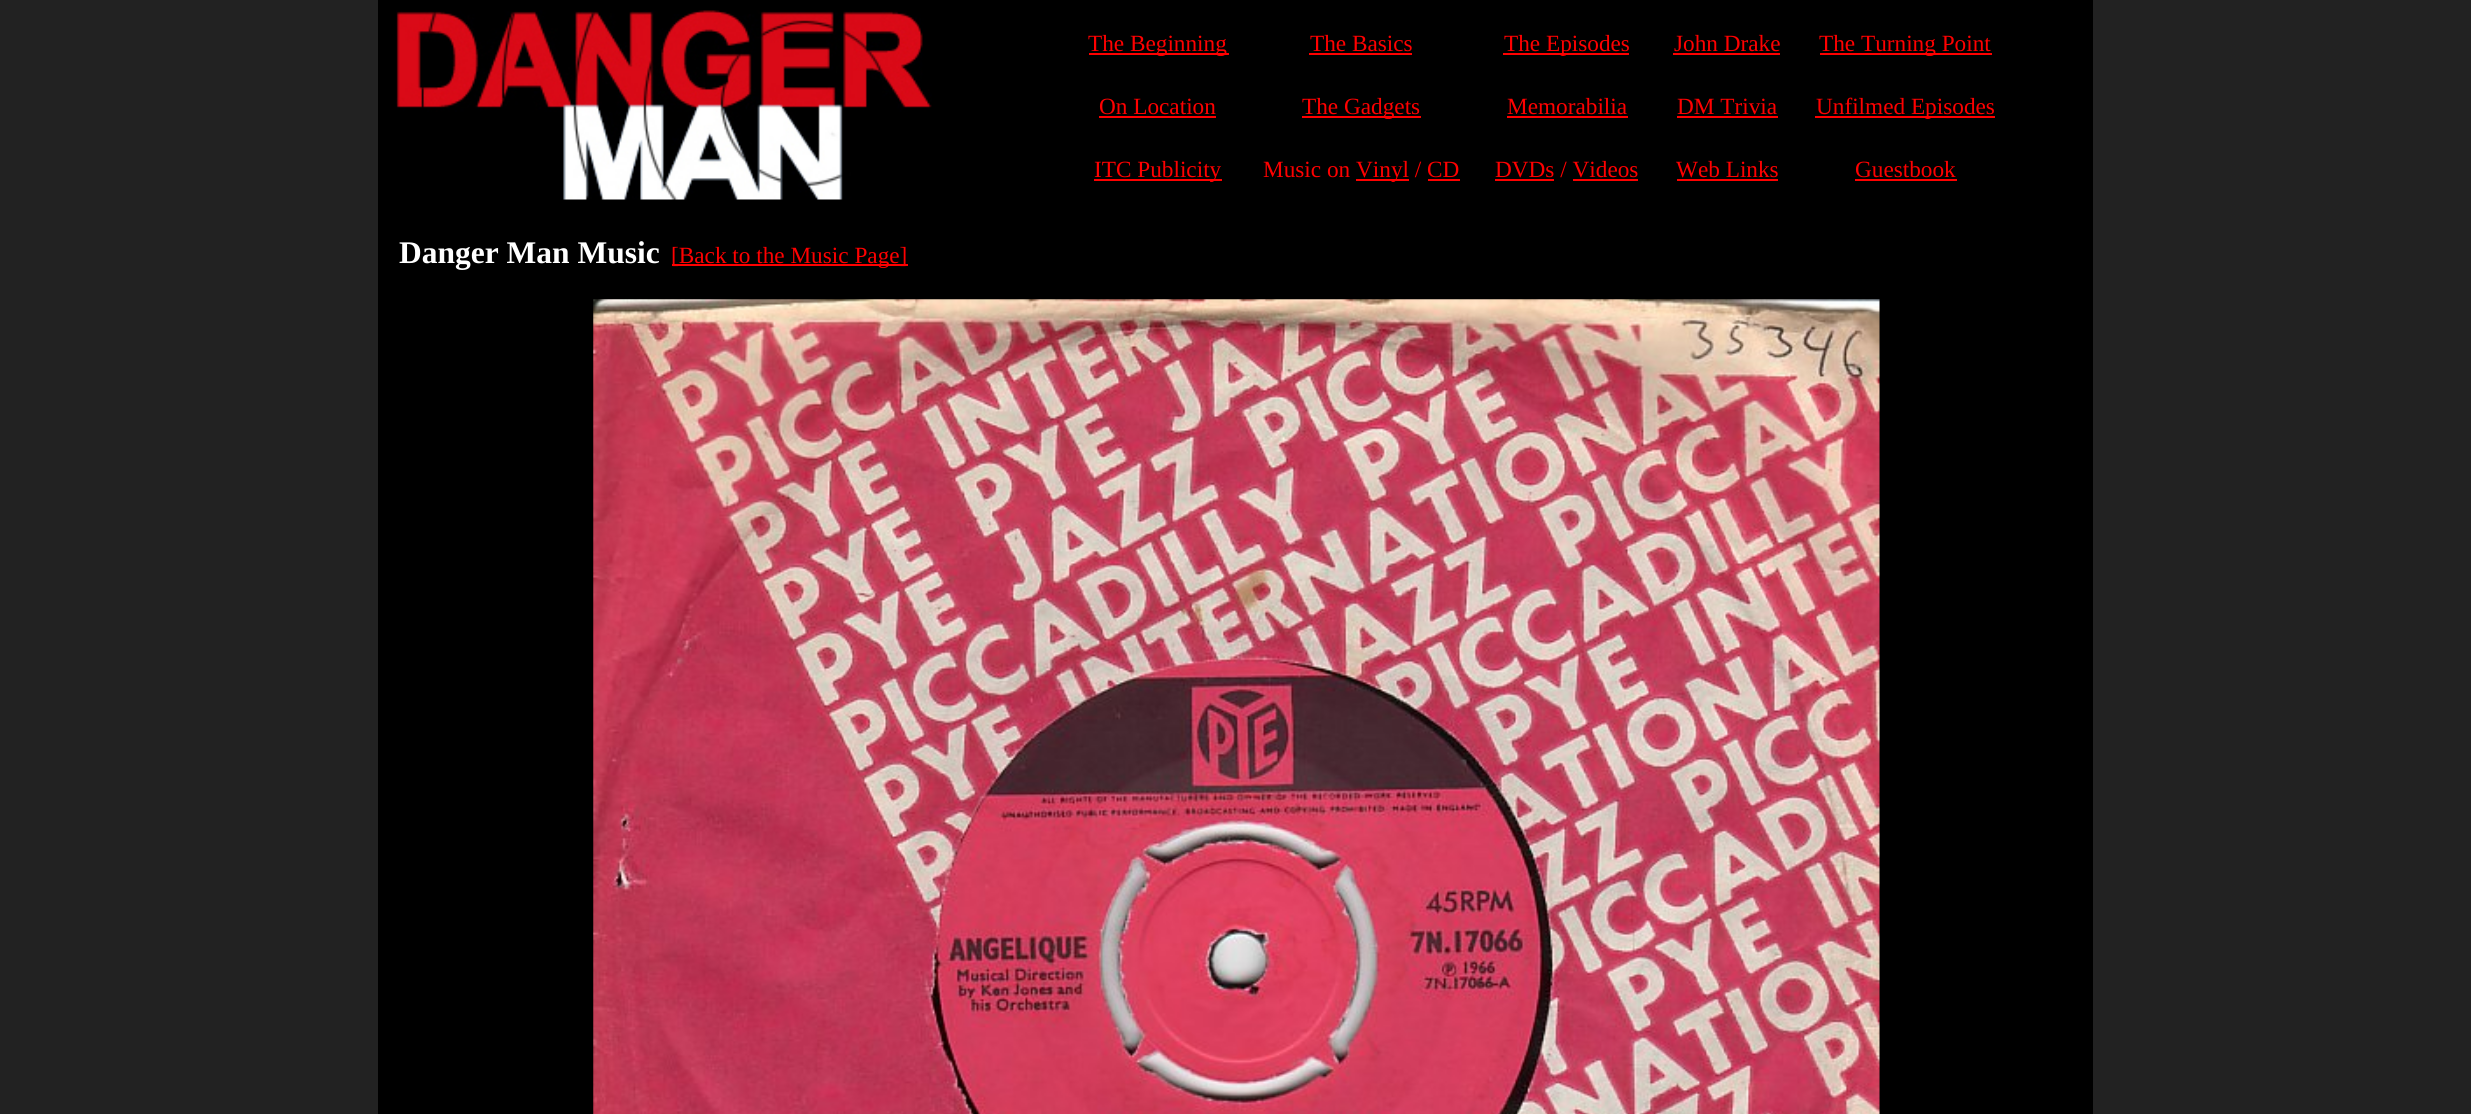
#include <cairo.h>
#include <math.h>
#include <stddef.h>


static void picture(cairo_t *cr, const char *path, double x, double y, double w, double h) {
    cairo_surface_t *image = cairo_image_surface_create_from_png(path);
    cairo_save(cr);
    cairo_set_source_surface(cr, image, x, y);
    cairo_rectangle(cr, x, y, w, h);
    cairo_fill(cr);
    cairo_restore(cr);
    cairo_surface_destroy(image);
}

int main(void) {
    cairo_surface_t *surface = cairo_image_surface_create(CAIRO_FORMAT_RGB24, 2471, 1114);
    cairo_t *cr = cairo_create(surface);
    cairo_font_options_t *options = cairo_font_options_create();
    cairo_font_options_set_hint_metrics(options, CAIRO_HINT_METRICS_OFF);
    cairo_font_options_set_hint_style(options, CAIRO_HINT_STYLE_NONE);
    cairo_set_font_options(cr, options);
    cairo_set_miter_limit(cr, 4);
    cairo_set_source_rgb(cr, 0.133, 0.133, 0.133);
    cairo_paint(cr);
    cairo_set_source_rgb(cr, 0, 0, 0);
    cairo_rectangle(cr, 378, 0, 1715, 1114);
    cairo_fill(cr);
    picture(cr, "img1.png", 396, 10, 536, 190);
    cairo_set_source_rgb(cr, 1, 0, 0);
    cairo_rectangle(cr, 1089, 53, 140, 2);
    cairo_fill(cr);
    cairo_select_font_face(cr, "Liberation Serif", CAIRO_FONT_SLANT_NORMAL, CAIRO_FONT_WEIGHT_NORMAL);
    cairo_set_font_size(cr, 23.25);
    cairo_move_to(cr, 1088, 51);
    cairo_show_text(cr, "The Beginning");
    cairo_move_to(cr, 1310, 51);
    cairo_show_text(cr, "The Basics");
    cairo_rectangle(cr, 1309, 53, 103, 2);
    cairo_fill(cr);
    cairo_rectangle(cr, 1503, 53, 126, 2);
    cairo_fill(cr);
    cairo_move_to(cr, 1504, 51);
    cairo_show_text(cr, "The Episodes");
    cairo_move_to(cr, 1674, 51);
    cairo_show_text(cr, "John Drake");
    cairo_rectangle(cr, 1673, 53, 107, 2);
    cairo_fill(cr);
    cairo_rectangle(cr, 1820, 53, 172, 2);
    cairo_fill(cr);
    cairo_move_to(cr, 1819, 51);
    cairo_show_text(cr, "The Turning Point");
    cairo_move_to(cr, 1099, 114);
    cairo_show_text(cr, "On Location");
    cairo_rectangle(cr, 1099, 116, 117, 2);
    cairo_fill(cr);
    cairo_rectangle(cr, 1302, 116, 119, 2);
    cairo_fill(cr);
    cairo_move_to(cr, 1302, 114);
    cairo_show_text(cr, "The Gadgets");
    cairo_move_to(cr, 1507, 114);
    cairo_show_text(cr, "Memorabilia");
    cairo_rectangle(cr, 1507, 116, 121, 2);
    cairo_fill(cr);
    cairo_move_to(cr, 1677, 114);
    cairo_show_text(cr, "DM Trivia");
    cairo_rectangle(cr, 1677, 116, 101, 2);
    cairo_fill(cr);
    cairo_rectangle(cr, 1815, 116, 180, 2);
    cairo_fill(cr);
    cairo_move_to(cr, 1816, 114);
    cairo_show_text(cr, "Unfilmed Episodes");
    cairo_rectangle(cr, 1094, 179, 128, 2);
    cairo_fill(cr);
    cairo_move_to(cr, 1094, 177);
    cairo_show_text(cr, "ITC Publicity");
    cairo_move_to(cr, 1263, 177);
    cairo_show_text(cr, "Music on");
    cairo_rectangle(cr, 1356, 179, 53, 2);
    cairo_fill(cr);
    cairo_move_to(cr, 1356, 177);
    cairo_show_text(cr, "Vinyl / CD");
    cairo_rectangle(cr, 1428, 179, 32, 2);
    cairo_fill(cr);
    cairo_move_to(cr, 1495, 177);
    cairo_show_text(cr, "DVDs / Videos");
    cairo_rectangle(cr, 1495, 179, 59, 2);
    cairo_fill(cr);
    cairo_rectangle(cr, 1573, 179, 65, 2);
    cairo_fill(cr);
    cairo_move_to(cr, 1676, 177);
    cairo_show_text(cr, "Web Links");
    cairo_rectangle(cr, 1677, 179, 101, 2);
    cairo_fill(cr);
    cairo_move_to(cr, 1855, 177);
    cairo_show_text(cr, "Guestbook");
    cairo_rectangle(cr, 1855, 179, 102, 2);
    cairo_fill(cr);
    cairo_select_font_face(cr, "Liberation Serif", CAIRO_FONT_SLANT_NORMAL, CAIRO_FONT_WEIGHT_BOLD);
    cairo_set_font_size(cr, 31.5);
    cairo_set_source_rgb(cr, 1, 1, 1);
    cairo_move_to(cr, 399, 263);
    cairo_show_text(cr, "Danger Man Music");
    cairo_set_source_rgb(cr, 1, 0, 0);
    cairo_rectangle(cr, 672, 264, 236, 2);
    cairo_fill(cr);
    cairo_select_font_face(cr, "Liberation Serif", CAIRO_FONT_SLANT_NORMAL, CAIRO_FONT_WEIGHT_NORMAL);
    cairo_set_font_size(cr, 23.25);
    cairo_move_to(cr, 671, 263);
    cairo_show_text(cr, "[Back to the Music Page]");
    picture(cr, "img2.png", 593, 299, 1287, 815);
    cairo_surface_write_to_png(surface, "page.png");
    cairo_font_options_destroy(options);
    cairo_destroy(cr);
    cairo_surface_destroy(surface);
    return 0;
}
